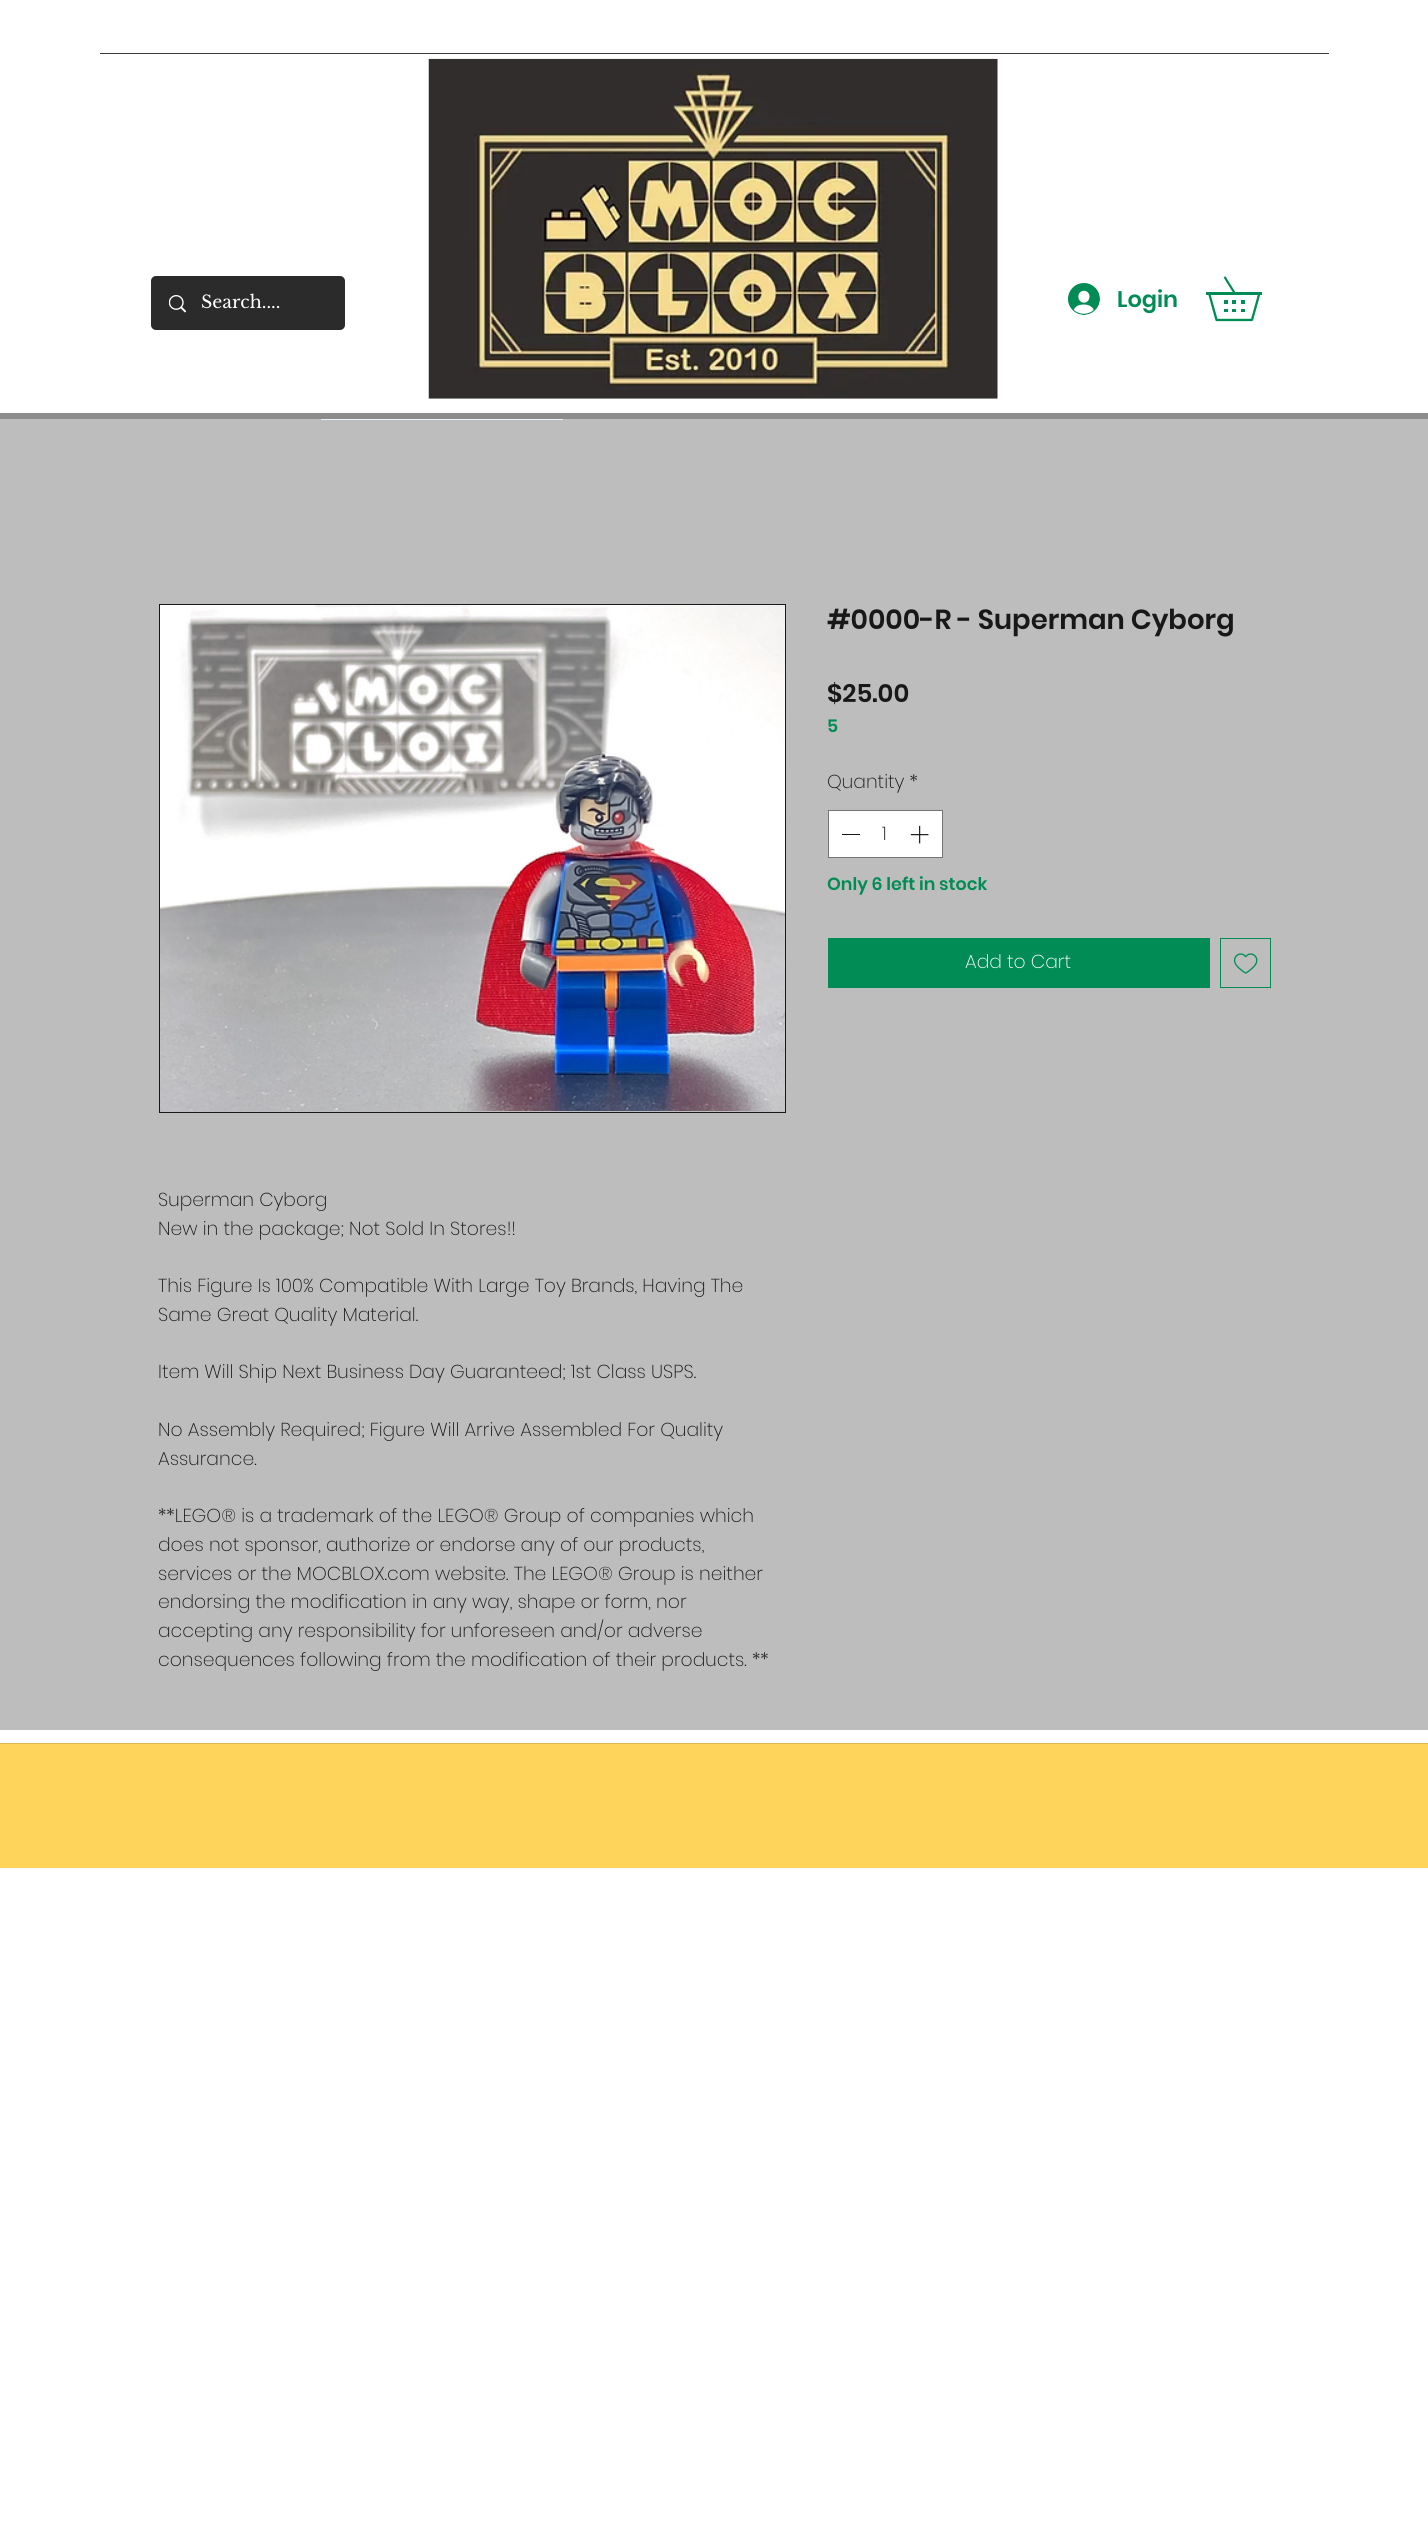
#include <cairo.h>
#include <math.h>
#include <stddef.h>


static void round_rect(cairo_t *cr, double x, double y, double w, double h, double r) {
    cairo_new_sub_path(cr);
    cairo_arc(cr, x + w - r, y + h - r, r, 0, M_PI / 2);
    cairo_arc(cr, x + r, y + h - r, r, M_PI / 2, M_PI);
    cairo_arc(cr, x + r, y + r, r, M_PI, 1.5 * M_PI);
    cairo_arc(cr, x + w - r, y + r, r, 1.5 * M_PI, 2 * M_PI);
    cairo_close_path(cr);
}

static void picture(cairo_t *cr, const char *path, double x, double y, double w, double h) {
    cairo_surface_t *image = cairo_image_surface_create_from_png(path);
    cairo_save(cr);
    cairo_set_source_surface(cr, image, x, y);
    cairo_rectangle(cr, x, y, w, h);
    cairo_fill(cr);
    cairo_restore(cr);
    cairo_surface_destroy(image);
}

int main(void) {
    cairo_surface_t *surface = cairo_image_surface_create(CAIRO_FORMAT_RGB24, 1428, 2547);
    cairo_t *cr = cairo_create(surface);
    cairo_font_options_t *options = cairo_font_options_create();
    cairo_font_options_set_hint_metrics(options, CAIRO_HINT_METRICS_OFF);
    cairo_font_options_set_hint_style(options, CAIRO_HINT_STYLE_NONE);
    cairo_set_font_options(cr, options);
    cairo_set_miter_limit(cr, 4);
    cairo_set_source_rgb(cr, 1, 1, 1);
    cairo_paint(cr);
    cairo_set_source_rgb(cr, 0.231, 0.231, 0.231);
    cairo_rectangle(cr, 100, 53, 1229, 1);
    cairo_fill(cr);
    cairo_set_source_rgb(cr, 0.169, 0.169, 0.169);
    round_rect(cr, 151, 276, 194, 54, 5);
    cairo_fill(cr);
    picture(cr, "img1.png", 169, 295, 17, 18);
    cairo_select_font_face(cr, "Libre Baskerville", CAIRO_FONT_SLANT_NORMAL, CAIRO_FONT_WEIGHT_NORMAL);
    cairo_set_font_size(cr, 17.5);
    cairo_set_source_rgb(cr, 1, 1, 1);
    cairo_move_to(cr, 201, 308);
    cairo_show_text(cr, "Search....");
    picture(cr, "img2.png", 428, 58, 570, 341);
    picture(cr, "img3.png", 1068, 283, 32, 32);
    cairo_select_font_face(cr, "Poppins SemiBold", CAIRO_FONT_SLANT_NORMAL, CAIRO_FONT_WEIGHT_NORMAL);
    cairo_set_font_size(cr, 22.5);
    cairo_set_source_rgb(cr, 0.008, 0.549, 0.333);
    cairo_move_to(cr, 1117, 307);
    cairo_show_text(cr, "Login");
    picture(cr, "img4.png", 1206, 276, 56, 46);
    cairo_set_source_rgb(cr, 0.549, 0.549, 0.549);
    cairo_rectangle(cr, 0, 413, 1428, 6);
    cairo_fill(cr);
    cairo_set_source_rgb(cr, 0.741, 0.741, 0.741);
    cairo_rectangle(cr, 0, 419, 1428, 1311);
    cairo_fill(cr);
    cairo_set_source_rgb(cr, 0.902, 0.961, 1);
    cairo_rectangle(cr, 321, 419, 242, 1);
    cairo_fill(cr);
    cairo_set_font_size(cr, 27.5);
    cairo_set_source_rgb(cr, 0.094, 0.094, 0.094);
    cairo_move_to(cr, 827, 629);
    cairo_show_text(cr, "#0000-R - Superman Cyborg");
    cairo_set_font_size(cr, 25);
    cairo_move_to(cr, 827, 702);
    cairo_show_text(cr, "$25.00");
    cairo_set_font_size(cr, 17.5);
    cairo_set_source_rgb(cr, 0.008, 0.549, 0.333);
    cairo_move_to(cr, 827, 732);
    cairo_show_text(cr, "5");
    cairo_select_font_face(cr, "Poppins ExtraLight", CAIRO_FONT_SLANT_NORMAL, CAIRO_FONT_WEIGHT_NORMAL);
    cairo_set_font_size(cr, 18.75);
    cairo_set_source_rgb(cr, 0.094, 0.094, 0.094);
    cairo_move_to(cr, 827, 788);
    cairo_show_text(cr, "Quantity *");
    cairo_set_source_rgb(cr, 1, 1, 1);
    cairo_rectangle(cr, 828.5, 810.5, 114, 47);
    cairo_fill_preserve(cr);
    cairo_set_source_rgb(cr, 0.455, 0.455, 0.455);
    cairo_set_line_width(cr, 1);
    cairo_stroke(cr);
    cairo_set_source_rgb(cr, 0.094, 0.094, 0.094);
    cairo_rectangle(cr, 842, 834, 18, 1);
    cairo_fill(cr);
    cairo_move_to(cr, 882, 840);
    cairo_show_text(cr, "1");
    picture(cr, "img5.png", 910, 825, 19, 19);
    cairo_select_font_face(cr, "Poppins SemiBold", CAIRO_FONT_SLANT_NORMAL, CAIRO_FONT_WEIGHT_NORMAL);
    cairo_set_font_size(cr, 17.5);
    cairo_set_source_rgb(cr, 0.008, 0.549, 0.333);
    cairo_move_to(cr, 827, 890);
    cairo_show_text(cr, "Only 6 left in stock");
    cairo_rectangle(cr, 828, 938, 382, 50);
    cairo_fill(cr);
    cairo_select_font_face(cr, "Poppins ExtraLight", CAIRO_FONT_SLANT_NORMAL, CAIRO_FONT_WEIGHT_NORMAL);
    cairo_set_font_size(cr, 18.75);
    cairo_set_source_rgb(cr, 1, 1, 1);
    cairo_move_to(cr, 965, 968);
    cairo_show_text(cr, "Add to Cart");
    cairo_rectangle(cr, 1220.5, 938.5, 50, 49);
    cairo_set_source_rgb(cr, 0.008, 0.549, 0.333);
    cairo_stroke(cr);
    picture(cr, "img6.png", 1233, 953, 25, 21);
    cairo_rectangle(cr, 159.5, 604.5, 626, 508);
    cairo_set_source_rgb(cr, 0.094, 0.094, 0.094);
    cairo_stroke(cr);
    picture(cr, "img7.png", 160, 605, 625, 506);
    cairo_move_to(cr, 158, 1206);
    cairo_show_text(cr, "Superman Cyborg");
    cairo_move_to(cr, 158, 1235);
    cairo_show_text(cr, "New in the package; Not Sold In Stores!!");
    cairo_move_to(cr, 158, 1292);
    cairo_show_text(cr, "This Figure Is 100% Compatible With Large Toy Brands, Having The");
    cairo_move_to(cr, 158, 1321);
    cairo_show_text(cr, "Same Great Quality Material.");
    cairo_move_to(cr, 158, 1378);
    cairo_show_text(cr, "Item Will Ship Next Business Day Guaranteed; 1st Class USPS.");
    cairo_move_to(cr, 158, 1436);
    cairo_show_text(cr, "No Assembly Required; Figure Will Arrive Assembled For Quality");
    cairo_move_to(cr, 158, 1465);
    cairo_show_text(cr, "Assurance.");
    cairo_move_to(cr, 158, 1522);
    cairo_show_text(cr, "**LEGO® is a trademark of the LEGO® Group of companies which");
    cairo_move_to(cr, 158, 1551);
    cairo_show_text(cr, "does not sponsor, authorize or endorse any of our products,");
    cairo_move_to(cr, 158, 1580);
    cairo_show_text(cr, "services or the MOCBLOX.com website. The LEGO® Group is neither");
    cairo_move_to(cr, 158, 1608);
    cairo_show_text(cr, "endorsing the modification in any way, shape or form, nor");
    cairo_move_to(cr, 158, 1637);
    cairo_show_text(cr, "accepting any responsibility for unforeseen and/or adverse");
    cairo_move_to(cr, 158, 1666);
    cairo_show_text(cr, "consequences following from the modification of their products. **");
    cairo_set_source_rgb(cr, 1, 0.831, 0.353);
    cairo_rectangle(cr, 0, 1744, 1428, 124);
    cairo_fill(cr);
    cairo_set_source_rgb(cr, 0.863, 0.722, 0.314);
    cairo_rectangle(cr, 0, 1743, 1428, 1);
    cairo_fill(cr);
    cairo_surface_write_to_png(surface, "page.png");
    cairo_font_options_destroy(options);
    cairo_destroy(cr);
    cairo_surface_destroy(surface);
    return 0;
}
